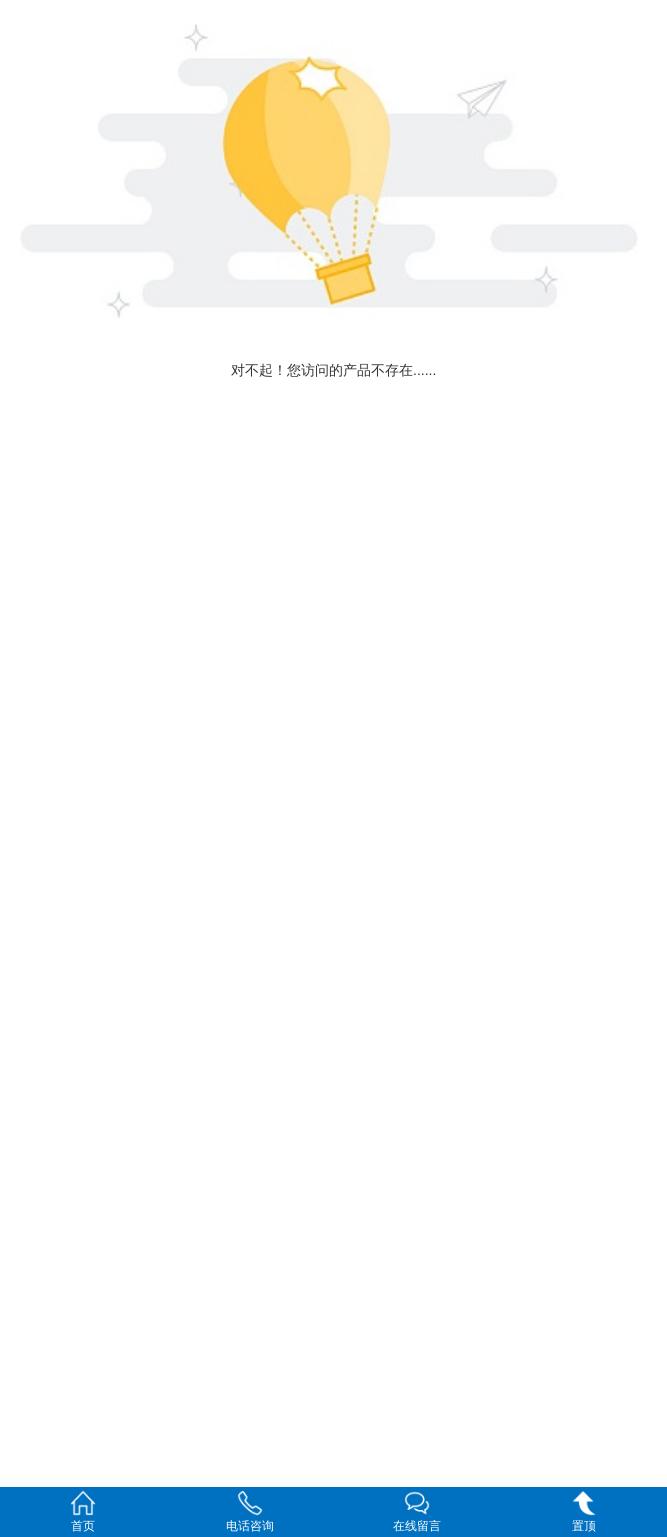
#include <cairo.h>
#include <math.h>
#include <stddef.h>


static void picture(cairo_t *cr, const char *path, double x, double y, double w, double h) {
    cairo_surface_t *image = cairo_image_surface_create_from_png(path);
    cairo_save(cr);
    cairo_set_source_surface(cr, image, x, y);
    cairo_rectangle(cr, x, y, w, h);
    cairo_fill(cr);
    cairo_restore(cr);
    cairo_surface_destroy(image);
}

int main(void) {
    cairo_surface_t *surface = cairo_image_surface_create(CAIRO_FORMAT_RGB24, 667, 1537);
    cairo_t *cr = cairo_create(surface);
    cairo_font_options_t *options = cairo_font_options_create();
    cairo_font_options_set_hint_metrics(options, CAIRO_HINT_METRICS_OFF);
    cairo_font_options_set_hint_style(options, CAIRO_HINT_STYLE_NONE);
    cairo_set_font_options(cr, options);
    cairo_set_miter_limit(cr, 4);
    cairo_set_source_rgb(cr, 1, 1, 1);
    cairo_paint(cr);
    picture(cr, "img1.png", 20, 24, 618, 295);
    cairo_select_font_face(cr, "WenQuanYi Zen Hei Medium", CAIRO_FONT_SLANT_NORMAL, CAIRO_FONT_WEIGHT_NORMAL);
    cairo_set_font_size(cr, 14);
    cairo_set_source_rgb(cr, 0.2, 0.2, 0.2);
    cairo_move_to(cr, 231, 375);
    cairo_show_text(cr, "对不起！您访问的产品不存在");
    cairo_select_font_face(cr, "Liberation Sans", CAIRO_FONT_SLANT_NORMAL, CAIRO_FONT_WEIGHT_NORMAL);
    cairo_move_to(cr, 413, 375);
    cairo_show_text(cr, "......");
    cairo_set_source_rgb(cr, 0, 0.439, 0.753);
    cairo_rectangle(cr, 0, 1487, 667, 50);
    cairo_fill(cr);
    picture(cr, "img2.png", 70, 1490, 26, 26);
    cairo_select_font_face(cr, "WenQuanYi Zen Hei Medium", CAIRO_FONT_SLANT_NORMAL, CAIRO_FONT_WEIGHT_NORMAL);
    cairo_set_font_size(cr, 12);
    cairo_set_source_rgb(cr, 1, 1, 1);
    cairo_move_to(cr, 71, 1530);
    cairo_show_text(cr, "首页");
    picture(cr, "img3.png", 237, 1490, 26, 26);
    cairo_move_to(cr, 226, 1530);
    cairo_show_text(cr, "电话咨询");
    picture(cr, "img4.png", 404, 1491, 26, 24);
    cairo_move_to(cr, 393, 1530);
    cairo_show_text(cr, "在线留言");
    picture(cr, "img5.png", 572, 1491, 24, 25);
    cairo_move_to(cr, 572, 1530);
    cairo_show_text(cr, "置顶");
    cairo_surface_write_to_png(surface, "page.png");
    cairo_font_options_destroy(options);
    cairo_destroy(cr);
    cairo_surface_destroy(surface);
    return 0;
}
